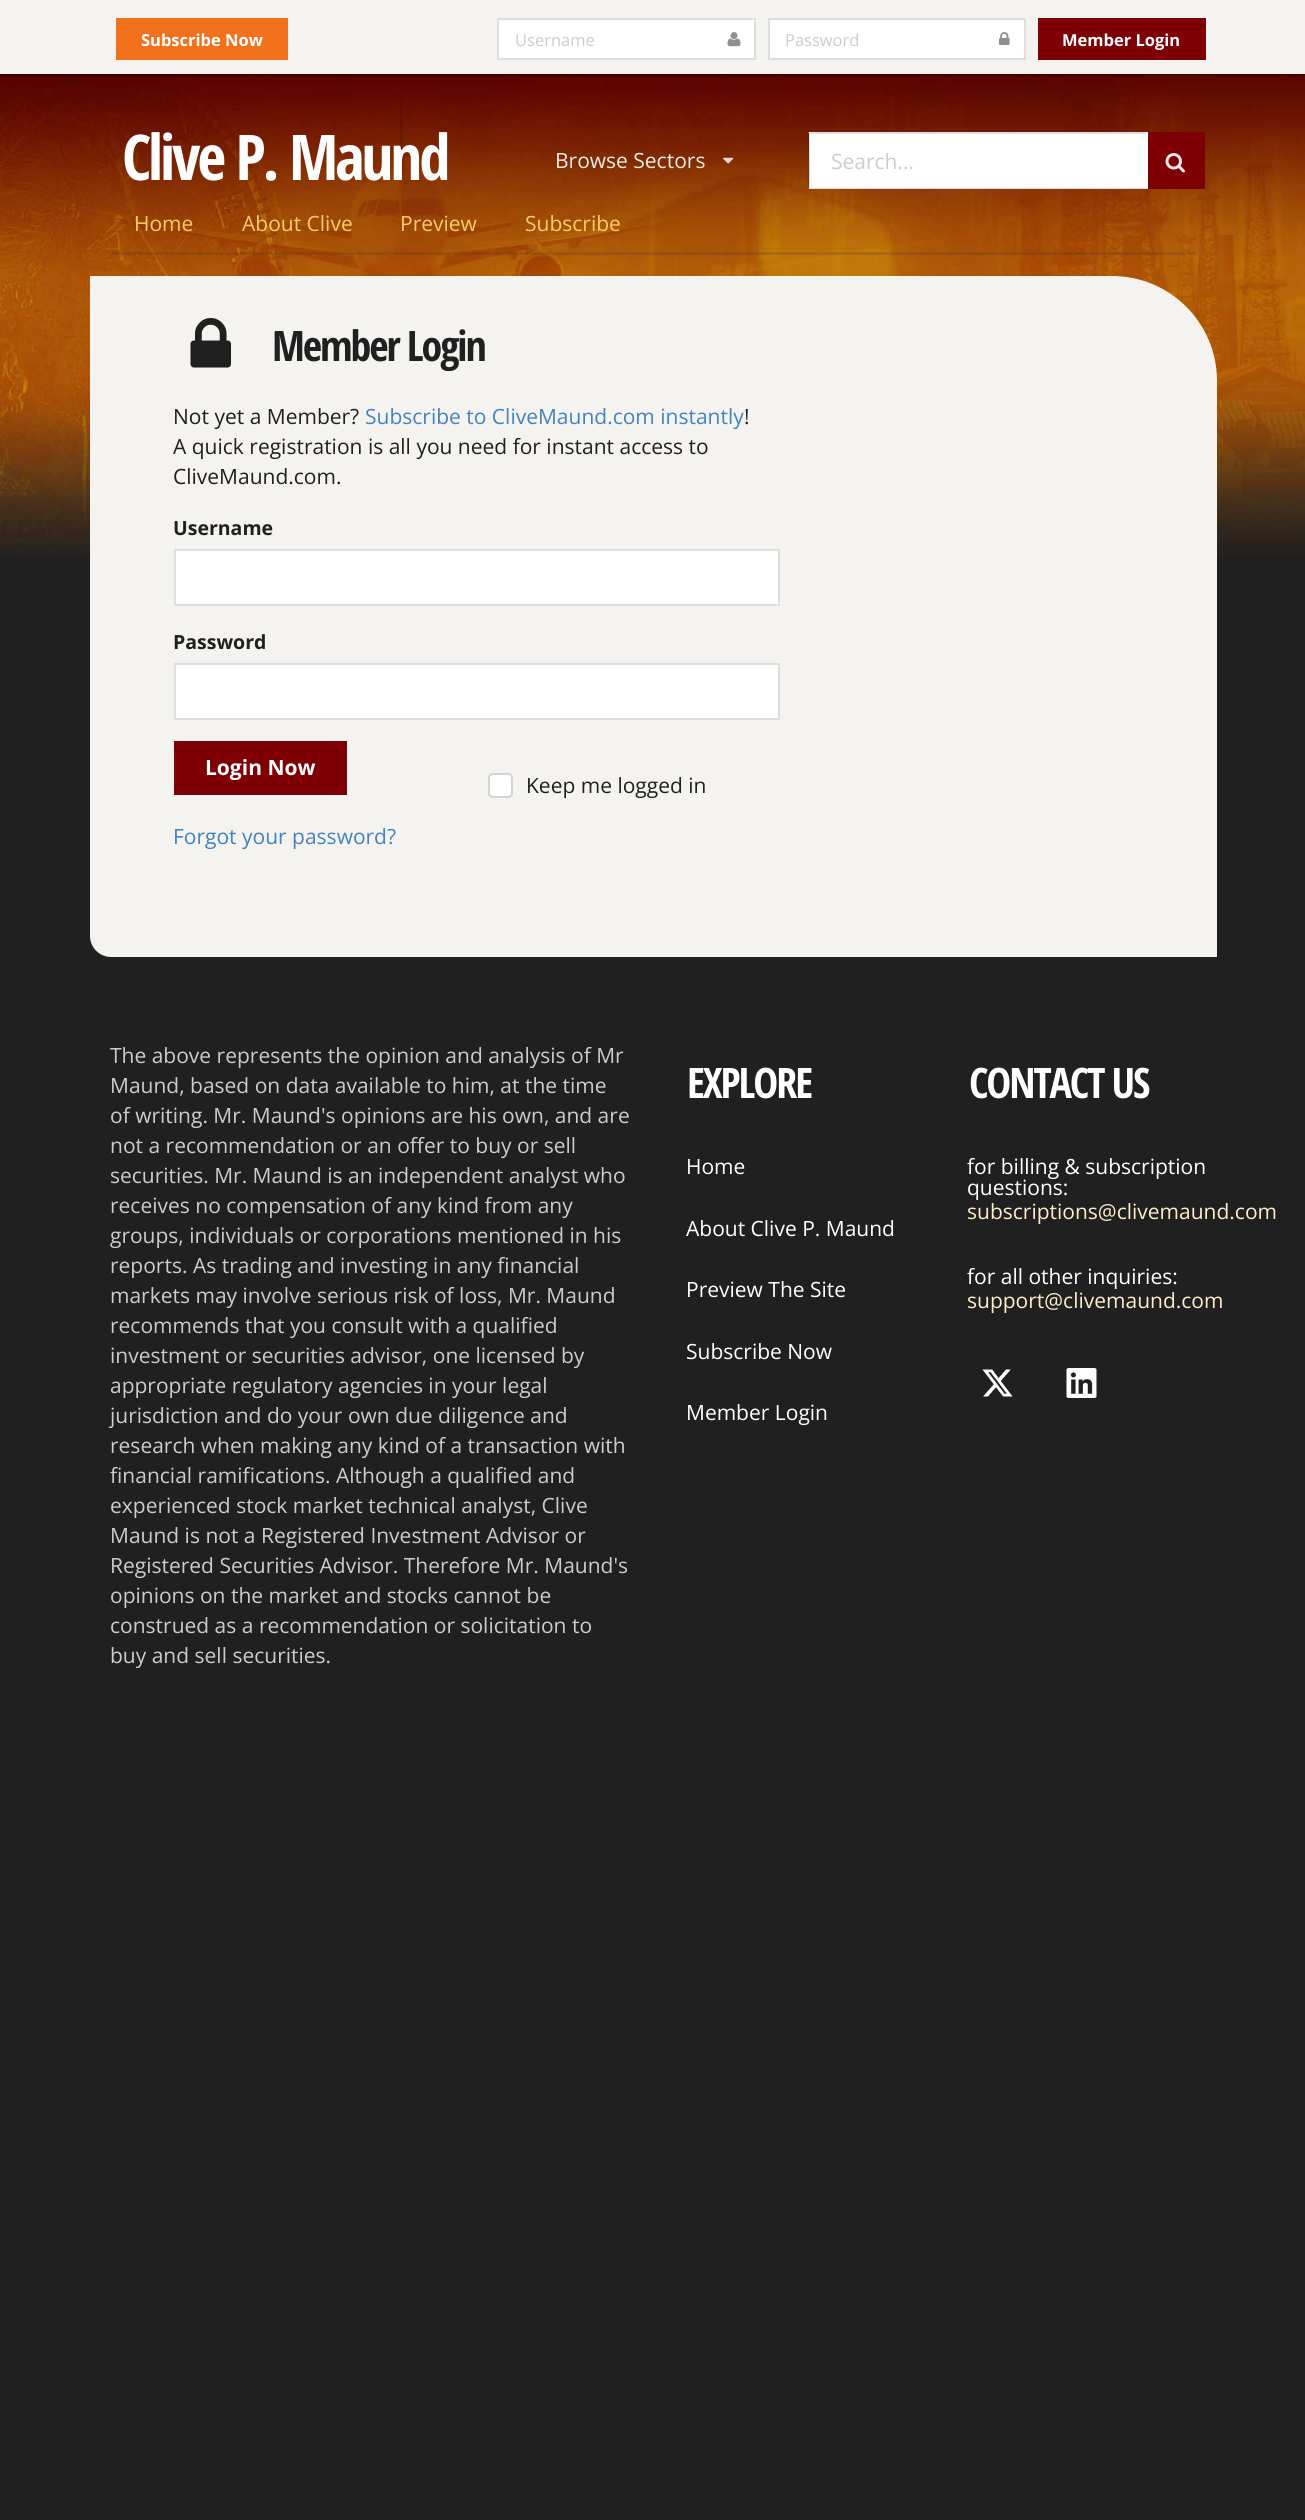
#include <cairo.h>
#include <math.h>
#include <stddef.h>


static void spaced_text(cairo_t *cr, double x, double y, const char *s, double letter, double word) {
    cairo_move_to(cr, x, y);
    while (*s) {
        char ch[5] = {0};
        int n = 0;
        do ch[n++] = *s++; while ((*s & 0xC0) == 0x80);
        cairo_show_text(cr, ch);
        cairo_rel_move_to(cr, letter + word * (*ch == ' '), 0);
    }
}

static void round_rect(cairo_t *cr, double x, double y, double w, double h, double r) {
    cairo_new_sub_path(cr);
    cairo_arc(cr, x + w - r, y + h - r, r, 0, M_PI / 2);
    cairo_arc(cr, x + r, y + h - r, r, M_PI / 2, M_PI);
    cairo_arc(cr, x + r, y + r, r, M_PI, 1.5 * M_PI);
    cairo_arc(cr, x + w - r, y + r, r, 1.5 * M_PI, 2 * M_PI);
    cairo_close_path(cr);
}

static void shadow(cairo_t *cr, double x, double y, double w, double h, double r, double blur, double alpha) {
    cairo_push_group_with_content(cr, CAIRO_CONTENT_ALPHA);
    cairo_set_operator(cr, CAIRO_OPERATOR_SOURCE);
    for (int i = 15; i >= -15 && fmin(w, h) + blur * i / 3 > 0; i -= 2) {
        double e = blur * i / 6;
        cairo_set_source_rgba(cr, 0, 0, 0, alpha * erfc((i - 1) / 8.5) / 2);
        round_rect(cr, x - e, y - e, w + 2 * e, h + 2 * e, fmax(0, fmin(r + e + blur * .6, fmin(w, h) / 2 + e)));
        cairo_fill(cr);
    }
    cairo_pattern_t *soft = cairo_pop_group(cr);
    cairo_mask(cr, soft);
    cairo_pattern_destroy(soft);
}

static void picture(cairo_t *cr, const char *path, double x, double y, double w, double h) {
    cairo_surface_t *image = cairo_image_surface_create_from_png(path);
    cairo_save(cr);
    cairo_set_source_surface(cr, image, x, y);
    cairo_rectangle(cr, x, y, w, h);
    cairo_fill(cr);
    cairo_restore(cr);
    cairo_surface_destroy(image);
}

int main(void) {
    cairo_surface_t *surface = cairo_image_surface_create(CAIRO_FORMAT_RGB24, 1305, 2520);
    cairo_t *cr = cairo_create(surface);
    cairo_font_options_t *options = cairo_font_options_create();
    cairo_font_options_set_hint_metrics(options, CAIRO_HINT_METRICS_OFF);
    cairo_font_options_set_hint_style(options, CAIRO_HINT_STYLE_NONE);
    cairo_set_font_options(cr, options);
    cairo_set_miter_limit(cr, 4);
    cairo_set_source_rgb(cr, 0.129, 0.125, 0.125);
    cairo_paint(cr);
    picture(cr, "img1.png", 0, 74, 1305, 481);
    cairo_set_source_rgb(cr, 0, 0, 0);
    shadow(cr, 0, 0, 1305, 74, 0, 2, 0.75);
    cairo_set_source_rgb(cr, 0.957, 0.953, 0.937);
    cairo_rectangle(cr, 0, 0, 1305, 74);
    cairo_fill(cr);
    cairo_set_source_rgb(cr, 0.949, 0.443, 0.11);
    cairo_rectangle(cr, 116, 18, 172, 42);
    cairo_fill(cr);
    cairo_select_font_face(cr, "Open Sans", CAIRO_FONT_SLANT_NORMAL, CAIRO_FONT_WEIGHT_BOLD);
    cairo_set_font_size(cr, 16.5);
    cairo_set_source_rgb(cr, 1, 1, 1);
    cairo_move_to(cr, 141, 46);
    cairo_show_text(cr, "Subscribe Now");
    cairo_rectangle(cr, 498, 19, 257, 40);
    cairo_fill_preserve(cr);
    cairo_set_source_rgb(cr, 0.871, 0.871, 0.871);
    cairo_stroke(cr);
    cairo_select_font_face(cr, "Open Sans", CAIRO_FONT_SLANT_NORMAL, CAIRO_FONT_WEIGHT_NORMAL);
    cairo_set_source_rgb(cr, 0.8, 0.8, 0.8);
    cairo_move_to(cr, 515, 46);
    cairo_show_text(cr, "Username");
    picture(cr, "img2.png", 727, 32, 14, 15);
    cairo_set_source_rgb(cr, 1, 1, 1);
    cairo_rectangle(cr, 769, 19, 256, 40);
    cairo_fill_preserve(cr);
    cairo_set_source_rgb(cr, 0.871, 0.871, 0.871);
    cairo_stroke(cr);
    cairo_set_source_rgb(cr, 0.8, 0.8, 0.8);
    cairo_move_to(cr, 785, 46);
    cairo_show_text(cr, "Password");
    picture(cr, "img3.png", 999, 32, 11, 13);
    cairo_set_source_rgb(cr, 0.498, 0, 0.016);
    cairo_rectangle(cr, 1038, 18, 168, 42);
    cairo_fill(cr);
    cairo_select_font_face(cr, "Open Sans", CAIRO_FONT_SLANT_NORMAL, CAIRO_FONT_WEIGHT_BOLD);
    cairo_set_source_rgb(cr, 1, 1, 1);
    cairo_move_to(cr, 1062, 46);
    cairo_show_text(cr, "Member Login");
    cairo_select_font_face(cr, "Open Sans Condensed", CAIRO_FONT_SLANT_NORMAL, CAIRO_FONT_WEIGHT_BOLD);
    cairo_set_font_size(cr, 63);
    spaced_text(cr, 122, 180, "Clive P. Maund", -3.1, 0);
    cairo_select_font_face(cr, "Open Sans", CAIRO_FONT_SLANT_NORMAL, CAIRO_FONT_WEIGHT_NORMAL);
    cairo_set_font_size(cr, 21);
    cairo_set_source_rgb(cr, 0.949, 0.918, 0.902);
    cairo_move_to(cr, 555, 168);
    cairo_show_text(cr, "Browse Sectors");
    picture(cr, "img4.png", 723, 157, 11, 7);
    cairo_set_source_rgb(cr, 1, 1, 1);
    cairo_rectangle(cr, 809, 132, 339, 57);
    cairo_fill(cr);
    cairo_set_source_rgb(cr, 0.871, 0.871, 0.871);
    cairo_new_path(cr);
    cairo_move_to(cr, 808, 132);
    cairo_line_to(cr, 1148, 132);
    cairo_line_to(cr, 1146, 134);
    cairo_line_to(cr, 810, 134);
    cairo_close_path(cr);
    cairo_fill(cr);
    cairo_new_path(cr);
    cairo_move_to(cr, 1148, 189);
    cairo_line_to(cr, 808, 189);
    cairo_line_to(cr, 810, 188);
    cairo_line_to(cr, 1146, 188);
    cairo_close_path(cr);
    cairo_fill(cr);
    cairo_set_source_rgba(cr, 0.133, 0.141, 0.149, 0.15);
    cairo_new_path(cr);
    cairo_move_to(cr, 808, 189);
    cairo_line_to(cr, 808, 132);
    cairo_line_to(cr, 810, 134);
    cairo_line_to(cr, 810, 188);
    cairo_close_path(cr);
    cairo_fill(cr);
    cairo_set_source_rgb(cr, 0.8, 0.8, 0.8);
    cairo_move_to(cr, 831, 169);
    cairo_show_text(cr, "Search...");
    cairo_set_source_rgb(cr, 0.498, 0, 0.016);
    cairo_rectangle(cr, 1148, 132, 57, 57);
    cairo_fill(cr);
    picture(cr, "img5.png", 1165, 153, 20, 20);
    cairo_set_source_rgba(cr, 0.133, 0.141, 0.149, 0.15);
    cairo_rectangle(cr, 111, 252, 1085, 3);
    cairo_fill(cr);
    cairo_set_source_rgb(cr, 0.988, 0.8, 0.408);
    cairo_move_to(cr, 134, 231);
    cairo_show_text(cr, "Home");
    cairo_move_to(cr, 242, 231);
    cairo_show_text(cr, "About Clive");
    cairo_move_to(cr, 400, 231);
    cairo_show_text(cr, "Preview");
    cairo_move_to(cr, 525, 231);
    cairo_show_text(cr, "Subscribe");
    cairo_set_source_rgb(cr, 0.957, 0.953, 0.937);
    cairo_new_path(cr);
    cairo_move_to(cr, 90, 276);
    cairo_line_to(cr, 1112, 276);
    cairo_curve_to(cr, 1170, 276, 1217, 323, 1217, 381);
    cairo_line_to(cr, 1217, 957);
    cairo_line_to(cr, 111, 957);
    cairo_curve_to(cr, 99.5, 957, 90, 947.5, 90, 936);
    cairo_close_path(cr);
    cairo_fill(cr);
    picture(cr, "img6.png", 190, 318, 41, 50);
    cairo_select_font_face(cr, "Open Sans Condensed", CAIRO_FONT_SLANT_NORMAL, CAIRO_FONT_WEIGHT_BOLD);
    cairo_set_font_size(cr, 42);
    cairo_set_source_rgb(cr, 0.129, 0.125, 0.125);
    spaced_text(cr, 272, 361, "Member Login", -2.1, 0);
    cairo_select_font_face(cr, "Open Sans", CAIRO_FONT_SLANT_NORMAL, CAIRO_FONT_WEIGHT_NORMAL);
    cairo_set_font_size(cr, 21);
    cairo_move_to(cr, 173, 424);
    cairo_show_text(cr, "Not yet a Member?");
    cairo_set_source_rgb(cr, 0.255, 0.514, 0.769);
    cairo_move_to(cr, 365, 424);
    cairo_show_text(cr, "Subscribe to CliveMaund.com instantly");
    cairo_set_source_rgb(cr, 0.129, 0.125, 0.125);
    cairo_move_to(cr, 744, 424);
    cairo_show_text(cr, "!");
    cairo_move_to(cr, 173, 454);
    cairo_show_text(cr, "A quick registration is all you need for instant access to");
    cairo_move_to(cr, 173, 484);
    cairo_show_text(cr, "CliveMaund.com.");
    cairo_select_font_face(cr, "Open Sans", CAIRO_FONT_SLANT_NORMAL, CAIRO_FONT_WEIGHT_BOLD);
    cairo_set_font_size(cr, 19.5);
    cairo_move_to(cr, 173, 535);
    cairo_show_text(cr, "Username");
    cairo_set_source_rgb(cr, 1, 1, 1);
    cairo_rectangle(cr, 175, 550, 604, 55);
    cairo_fill_preserve(cr);
    cairo_set_source_rgb(cr, 0.871, 0.871, 0.871);
    cairo_stroke(cr);
    cairo_set_source_rgb(cr, 0.129, 0.125, 0.125);
    cairo_move_to(cr, 173, 649);
    cairo_show_text(cr, "Password");
    cairo_set_source_rgb(cr, 1, 1, 1);
    cairo_rectangle(cr, 175, 664, 604, 55);
    cairo_fill_preserve(cr);
    cairo_set_source_rgb(cr, 0.871, 0.871, 0.871);
    cairo_stroke(cr);
    cairo_set_source_rgb(cr, 0.498, 0, 0.016);
    cairo_rectangle(cr, 174, 741, 173, 54);
    cairo_fill(cr);
    cairo_set_font_size(cr, 21);
    cairo_set_source_rgb(cr, 1, 1, 1);
    cairo_move_to(cr, 205, 775);
    cairo_show_text(cr, "Login Now");
    round_rect(cr, 489, 774, 23, 23, 4);
    cairo_fill_preserve(cr);
    cairo_set_source_rgb(cr, 0.831, 0.831, 0.835);
    cairo_stroke(cr);
    cairo_select_font_face(cr, "Open Sans", CAIRO_FONT_SLANT_NORMAL, CAIRO_FONT_WEIGHT_NORMAL);
    cairo_set_source_rgb(cr, 0.129, 0.125, 0.125);
    cairo_move_to(cr, 526, 793);
    cairo_show_text(cr, "Keep me logged in");
    cairo_set_source_rgb(cr, 0.255, 0.514, 0.769);
    cairo_move_to(cr, 173, 844);
    cairo_show_text(cr, "Forgot your password?");
    cairo_set_source_rgb(cr, 0.8, 0.8, 0.8);
    cairo_move_to(cr, 110, 1063);
    cairo_show_text(cr, "The above represents the opinion and analysis of Mr");
    cairo_move_to(cr, 110, 1093);
    cairo_show_text(cr, "Maund, based on data available to him, at the time");
    cairo_move_to(cr, 110, 1123);
    cairo_show_text(cr, "of writing. Mr. Maund's opinions are his own, and are");
    cairo_move_to(cr, 110, 1153);
    cairo_show_text(cr, "not a recommendation or an offer to buy or sell");
    cairo_move_to(cr, 110, 1183);
    cairo_show_text(cr, "securities. Mr. Maund is an independent analyst who");
    cairo_move_to(cr, 110, 1213);
    cairo_show_text(cr, "receives no compensation of any kind from any");
    cairo_move_to(cr, 110, 1243);
    cairo_show_text(cr, "groups, individuals or corporations mentioned in his");
    cairo_move_to(cr, 110, 1273);
    cairo_show_text(cr, "reports. As trading and investing in any financial");
    cairo_move_to(cr, 110, 1303);
    cairo_show_text(cr, "markets may involve serious risk of loss, Mr. Maund");
    cairo_move_to(cr, 110, 1333);
    cairo_show_text(cr, "recommends that you consult with a qualified");
    cairo_move_to(cr, 110, 1363);
    cairo_show_text(cr, "investment or securities advisor, one licensed by");
    cairo_move_to(cr, 110, 1393);
    cairo_show_text(cr, "appropriate regulatory agencies in your legal");
    cairo_move_to(cr, 110, 1423);
    cairo_show_text(cr, "jurisdiction and do your own due diligence and");
    cairo_move_to(cr, 110, 1453);
    cairo_show_text(cr, "research when making any kind of a transaction with");
    cairo_move_to(cr, 110, 1483);
    cairo_show_text(cr, "financial ramifications. Although a qualified and");
    cairo_move_to(cr, 110, 1513);
    cairo_show_text(cr, "experienced stock market technical analyst, Clive");
    cairo_move_to(cr, 110, 1543);
    cairo_show_text(cr, "Maund is not a Registered Investment Advisor or");
    cairo_move_to(cr, 110, 1573);
    cairo_show_text(cr, "Registered Securities Advisor. Therefore Mr. Maund's");
    cairo_move_to(cr, 110, 1603);
    cairo_show_text(cr, "opinions on the market and stocks cannot be");
    cairo_move_to(cr, 110, 1633);
    cairo_show_text(cr, "construed as a recommendation or solicitation to");
    cairo_move_to(cr, 110, 1663);
    cairo_show_text(cr, "buy and sell securities.");
    cairo_select_font_face(cr, "Open Sans Condensed", CAIRO_FONT_SLANT_NORMAL, CAIRO_FONT_WEIGHT_BOLD);
    cairo_set_font_size(cr, 42);
    cairo_set_source_rgb(cr, 1, 1, 1);
    spaced_text(cr, 687, 1098, "EXPLORE", -2.1, 0);
    cairo_select_font_face(cr, "Open Sans", CAIRO_FONT_SLANT_NORMAL, CAIRO_FONT_WEIGHT_NORMAL);
    cairo_set_font_size(cr, 21);
    cairo_move_to(cr, 686, 1174);
    cairo_show_text(cr, "Home");
    cairo_move_to(cr, 686, 1236);
    cairo_show_text(cr, "About Clive P. Maund");
    cairo_move_to(cr, 686, 1297);
    cairo_show_text(cr, "Preview The Site");
    cairo_move_to(cr, 686, 1359);
    cairo_show_text(cr, "Subscribe Now");
    cairo_move_to(cr, 686, 1420);
    cairo_show_text(cr, "Member Login");
    cairo_select_font_face(cr, "Open Sans Condensed", CAIRO_FONT_SLANT_NORMAL, CAIRO_FONT_WEIGHT_BOLD);
    cairo_set_font_size(cr, 42);
    spaced_text(cr, 969, 1098, "CONTACT US", -2.1, 0);
    cairo_select_font_face(cr, "Open Sans", CAIRO_FONT_SLANT_NORMAL, CAIRO_FONT_WEIGHT_NORMAL);
    cairo_set_font_size(cr, 21);
    cairo_move_to(cr, 967, 1174);
    cairo_show_text(cr, "for billing & subscription");
    cairo_move_to(cr, 967, 1195);
    cairo_show_text(cr, "questions:");
    cairo_set_source_rgb(cr, 0.996, 0.929, 0.784);
    cairo_move_to(cr, 967, 1219);
    cairo_show_text(cr, "subscriptions@clivemaund.com");
    cairo_set_source_rgb(cr, 1, 1, 1);
    cairo_move_to(cr, 967, 1284);
    cairo_show_text(cr, "for all other inquiries:");
    cairo_set_source_rgb(cr, 0.996, 0.929, 0.784);
    cairo_move_to(cr, 967, 1308);
    cairo_show_text(cr, "support@clivemaund.com");
    picture(cr, "img7.png", 982, 1369, 31, 28);
    picture(cr, "img8.png", 1066, 1368, 31, 30);
    cairo_surface_write_to_png(surface, "page.png");
    cairo_font_options_destroy(options);
    cairo_destroy(cr);
    cairo_surface_destroy(surface);
    return 0;
}
